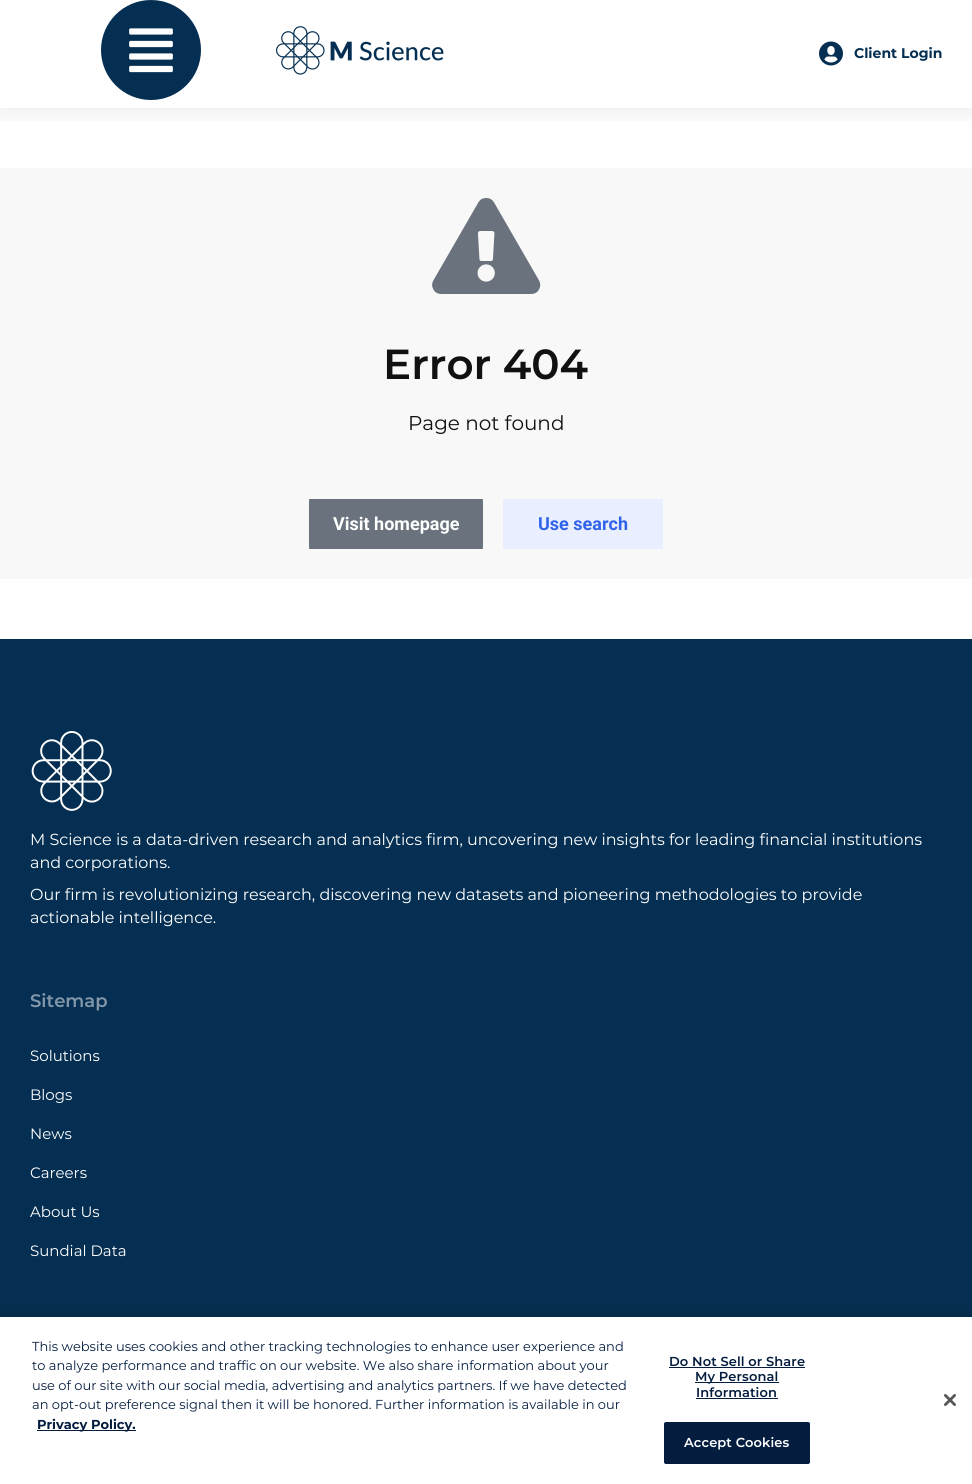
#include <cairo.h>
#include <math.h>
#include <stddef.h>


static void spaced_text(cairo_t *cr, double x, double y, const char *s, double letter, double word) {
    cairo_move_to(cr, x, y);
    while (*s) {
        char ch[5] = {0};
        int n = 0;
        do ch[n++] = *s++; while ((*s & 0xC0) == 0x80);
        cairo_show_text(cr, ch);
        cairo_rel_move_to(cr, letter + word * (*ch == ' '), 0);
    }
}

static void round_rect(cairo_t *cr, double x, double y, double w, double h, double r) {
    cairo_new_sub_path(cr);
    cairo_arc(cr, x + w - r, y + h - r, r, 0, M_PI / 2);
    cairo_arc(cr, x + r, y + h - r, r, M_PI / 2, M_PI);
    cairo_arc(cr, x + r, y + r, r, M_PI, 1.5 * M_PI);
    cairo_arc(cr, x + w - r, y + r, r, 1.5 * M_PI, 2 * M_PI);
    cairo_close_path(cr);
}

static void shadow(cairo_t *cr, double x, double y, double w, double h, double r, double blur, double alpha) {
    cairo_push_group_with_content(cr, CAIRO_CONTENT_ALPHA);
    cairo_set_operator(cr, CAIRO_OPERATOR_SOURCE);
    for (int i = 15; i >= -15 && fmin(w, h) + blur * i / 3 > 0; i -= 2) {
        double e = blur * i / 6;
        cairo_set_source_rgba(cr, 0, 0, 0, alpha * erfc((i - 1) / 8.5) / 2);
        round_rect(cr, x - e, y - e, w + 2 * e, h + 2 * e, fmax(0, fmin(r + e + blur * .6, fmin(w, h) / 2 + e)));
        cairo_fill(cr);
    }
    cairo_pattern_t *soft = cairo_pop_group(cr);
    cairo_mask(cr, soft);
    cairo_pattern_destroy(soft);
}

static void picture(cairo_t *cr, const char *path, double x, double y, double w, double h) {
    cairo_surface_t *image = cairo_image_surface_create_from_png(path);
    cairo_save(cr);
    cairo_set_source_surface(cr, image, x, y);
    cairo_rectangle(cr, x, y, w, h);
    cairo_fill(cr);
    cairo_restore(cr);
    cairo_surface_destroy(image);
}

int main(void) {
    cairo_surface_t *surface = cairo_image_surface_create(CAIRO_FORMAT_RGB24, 972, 1484);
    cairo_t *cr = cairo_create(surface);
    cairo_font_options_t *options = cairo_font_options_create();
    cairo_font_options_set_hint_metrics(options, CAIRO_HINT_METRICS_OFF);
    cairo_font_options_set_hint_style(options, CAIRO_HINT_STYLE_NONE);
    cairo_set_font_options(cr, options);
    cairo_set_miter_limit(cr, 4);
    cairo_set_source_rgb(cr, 1, 1, 1);
    cairo_paint(cr);
    cairo_save(cr);
    cairo_rectangle(cr, 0, 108, 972, 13);
    cairo_clip(cr);
    cairo_set_source_rgb(cr, 0, 0, 0);
    shadow(cr, 0, 0, 972, 108, 0, 15, 0.1);
    cairo_restore(cr);
    cairo_set_source_rgb(cr, 0.02, 0.184, 0.322);
    cairo_arc(cr, 151, 50, 50, 0, 2 * M_PI);
    cairo_fill(cr);
    picture(cr, "img1.png", 129, 28, 44, 45);
    picture(cr, "img2.png", 276, 26, 168, 49);
    picture(cr, "img3.png", 819, 41, 24, 25);
    cairo_select_font_face(cr, "Montserrat", CAIRO_FONT_SLANT_NORMAL, CAIRO_FONT_WEIGHT_BOLD);
    cairo_set_font_size(cr, 14);
    cairo_move_to(cr, 854, 58);
    cairo_show_text(cr, "Client Login");
    cairo_set_source_rgb(cr, 0.969, 0.969, 0.969);
    cairo_rectangle(cr, 0, 168, 972, 411);
    cairo_fill(cr);
    picture(cr, "img4.png", 432, 198, 109, 96);
    cairo_select_font_face(cr, "Montserrat SemiBold", CAIRO_FONT_SLANT_NORMAL, CAIRO_FONT_WEIGHT_NORMAL);
    cairo_set_font_size(cr, 42);
    cairo_set_source_rgb(cr, 0.067, 0.067, 0.067);
    cairo_move_to(cr, 383, 379);
    cairo_show_text(cr, "Error 404");
    cairo_select_font_face(cr, "Montserrat", CAIRO_FONT_SLANT_NORMAL, CAIRO_FONT_WEIGHT_NORMAL);
    cairo_set_font_size(cr, 20);
    cairo_move_to(cr, 408, 430);
    cairo_show_text(cr, "Page not found");
    cairo_set_source_rgb(cr, 0.412, 0.447, 0.49);
    round_rect(cr, 309, 499, 174, 50, 1);
    cairo_fill(cr);
    cairo_select_font_face(cr, "Roboto", CAIRO_FONT_SLANT_NORMAL, CAIRO_FONT_WEIGHT_BOLD);
    cairo_set_font_size(cr, 18);
    cairo_set_source_rgb(cr, 1, 1, 1);
    cairo_move_to(cr, 333, 530);
    cairo_show_text(cr, "Visit homepage");
    cairo_set_source_rgb(cr, 0.914, 0.937, 0.996);
    round_rect(cr, 503, 499, 160, 50, 1);
    cairo_fill(cr);
    cairo_set_source_rgb(cr, 0.196, 0.388, 0.918);
    cairo_move_to(cr, 538, 530);
    cairo_show_text(cr, "Use search");
    cairo_set_source_rgb(cr, 0.02, 0.184, 0.322);
    cairo_rectangle(cr, 0, 639, 972, 678);
    cairo_fill(cr);
    picture(cr, "img5.png", 31, 731, 81, 80);
    cairo_select_font_face(cr, "Montserrat", CAIRO_FONT_SLANT_NORMAL, CAIRO_FONT_WEIGHT_NORMAL);
    cairo_set_font_size(cr, 16);
    cairo_set_source_rgb(cr, 1, 1, 1);
    cairo_move_to(cr, 30, 845);
    cairo_show_text(cr, "M Science is a data-driven research and analytics firm, uncovering new insights for leading financial institutions");
    cairo_move_to(cr, 30, 868);
    cairo_show_text(cr, "and corporations.");
    cairo_move_to(cr, 30, 900);
    cairo_show_text(cr, "Our firm is revolutionizing research, discovering new datasets and pioneering methodologies to provide");
    cairo_move_to(cr, 30, 923);
    cairo_show_text(cr, "actionable intelligence.");
    cairo_select_font_face(cr, "Montserrat SemiBold", CAIRO_FONT_SLANT_NORMAL, CAIRO_FONT_WEIGHT_NORMAL);
    cairo_set_font_size(cr, 18);
    cairo_set_source_rgb(cr, 0.51, 0.592, 0.663);
    cairo_move_to(cr, 30, 1007);
    cairo_show_text(cr, "Sitemap");
    cairo_select_font_face(cr, "Montserrat", CAIRO_FONT_SLANT_NORMAL, CAIRO_FONT_WEIGHT_NORMAL);
    cairo_set_font_size(cr, 15);
    cairo_set_source_rgb(cr, 1, 1, 1);
    cairo_move_to(cr, 30, 1061);
    cairo_show_text(cr, "Solutions");
    cairo_move_to(cr, 30, 1100);
    cairo_show_text(cr, "Blogs");
    cairo_move_to(cr, 30, 1139);
    cairo_show_text(cr, "News");
    cairo_move_to(cr, 30, 1178);
    cairo_show_text(cr, "Careers");
    cairo_move_to(cr, 30, 1217);
    cairo_show_text(cr, "About Us");
    cairo_move_to(cr, 30, 1256);
    cairo_show_text(cr, "Sundial Data");
    cairo_set_source_rgb(cr, 0, 0, 0);
    shadow(cr, 0, 1317, 972, 167, 0, 9, 0.2);
    cairo_set_source_rgb(cr, 1, 1, 1);
    cairo_rectangle(cr, 0, 1317, 972, 167);
    cairo_fill(cr);
    cairo_set_font_size(cr, 13);
    cairo_set_source_rgb(cr, 0.016, 0.114, 0.247);
    cairo_move_to(cr, 32, 1351);
    cairo_show_text(cr, "This website uses cookies and other tracking technologies to enhance user experience and");
    cairo_move_to(cr, 32, 1370);
    cairo_show_text(cr, "to analyze performance and traffic on our website. We also share information about your");
    cairo_move_to(cr, 32, 1390);
    cairo_show_text(cr, "use of our site with our social media, advertising and analytics partners. If we have detected");
    cairo_move_to(cr, 32, 1409);
    cairo_show_text(cr, "an opt-out preference signal then it will be honored. Further information is available in our");
    cairo_rectangle(cr, 37, 1430, 99, 1);
    cairo_fill(cr);
    cairo_select_font_face(cr, "Montserrat", CAIRO_FONT_SLANT_NORMAL, CAIRO_FONT_WEIGHT_BOLD);
    cairo_move_to(cr, 37, 1429);
    cairo_show_text(cr, "Privacy Policy.");
    cairo_select_font_face(cr, "Montserrat SemiBold", CAIRO_FONT_SLANT_NORMAL, CAIRO_FONT_WEIGHT_NORMAL);
    spaced_text(cr, 669, 1366, "Do Not Sell or Share", 0.1, 0);
    cairo_rectangle(cr, 669, 1367, 136, 1);
    cairo_fill(cr);
    cairo_rectangle(cr, 695, 1382, 84, 1);
    cairo_fill(cr);
    spaced_text(cr, 695, 1381, "My Personal", 0.1, 0);
    spaced_text(cr, 696, 1397, "Information", 0.1, 0);
    cairo_rectangle(cr, 696, 1398, 82, 1);
    cairo_fill(cr);
    round_rect(cr, 664.5, 1422.5, 145, 41, 1.5);
    cairo_fill_preserve(cr);
    cairo_set_line_width(cr, 1);
    cairo_stroke(cr);
    cairo_set_source_rgb(cr, 1, 1, 1);
    spaced_text(cr, 684, 1447, "Accept Cookies", 0.1, 0);
    picture(cr, "img6.png", 944, 1394, 12, 12);
    cairo_surface_write_to_png(surface, "page.png");
    cairo_font_options_destroy(options);
    cairo_destroy(cr);
    cairo_surface_destroy(surface);
    return 0;
}
